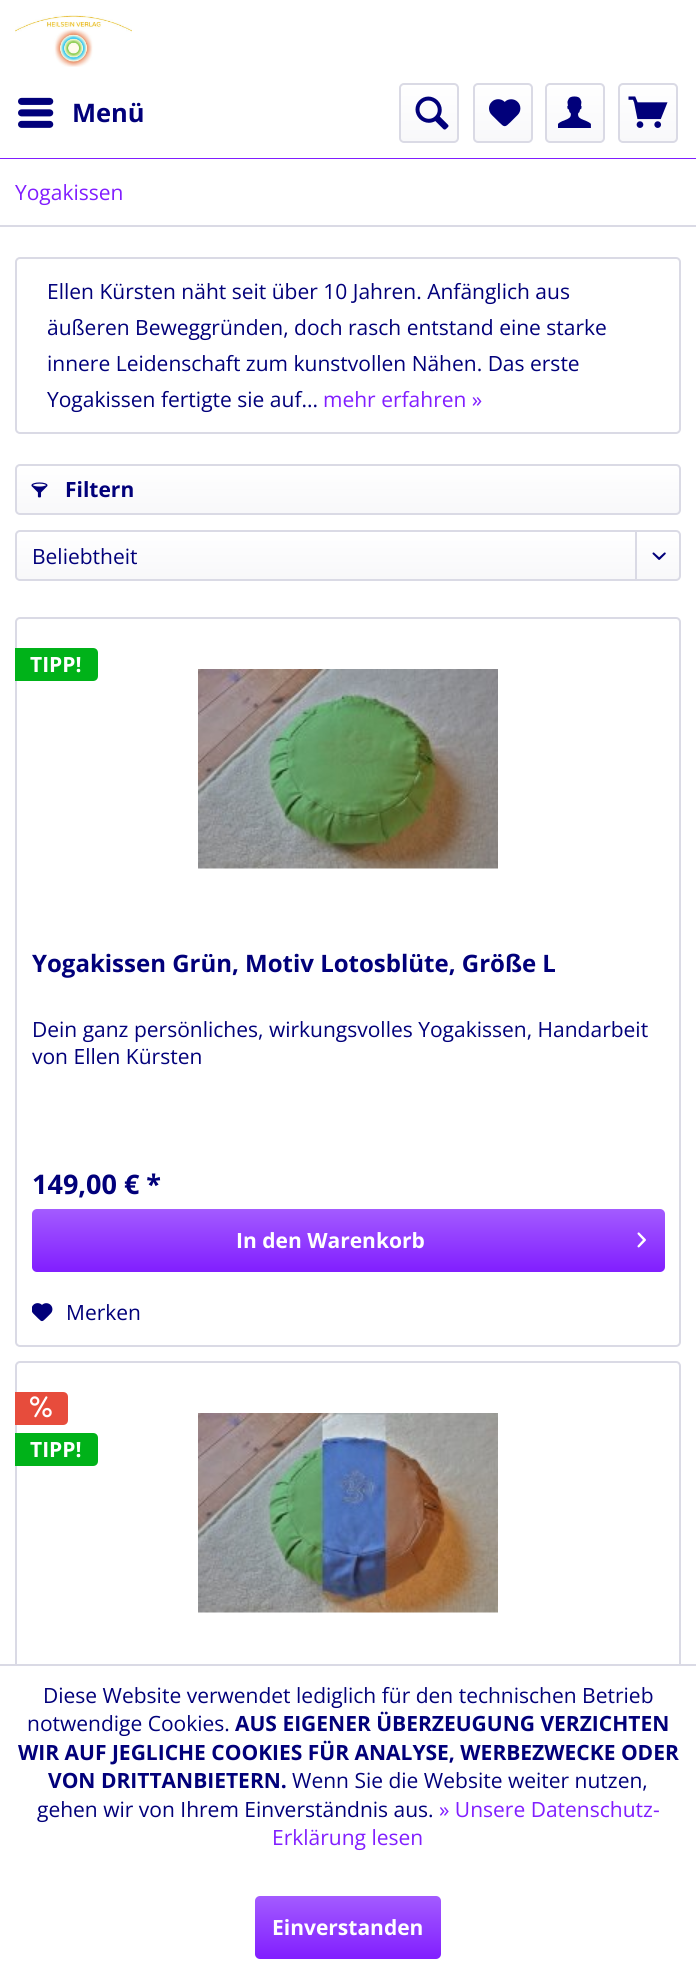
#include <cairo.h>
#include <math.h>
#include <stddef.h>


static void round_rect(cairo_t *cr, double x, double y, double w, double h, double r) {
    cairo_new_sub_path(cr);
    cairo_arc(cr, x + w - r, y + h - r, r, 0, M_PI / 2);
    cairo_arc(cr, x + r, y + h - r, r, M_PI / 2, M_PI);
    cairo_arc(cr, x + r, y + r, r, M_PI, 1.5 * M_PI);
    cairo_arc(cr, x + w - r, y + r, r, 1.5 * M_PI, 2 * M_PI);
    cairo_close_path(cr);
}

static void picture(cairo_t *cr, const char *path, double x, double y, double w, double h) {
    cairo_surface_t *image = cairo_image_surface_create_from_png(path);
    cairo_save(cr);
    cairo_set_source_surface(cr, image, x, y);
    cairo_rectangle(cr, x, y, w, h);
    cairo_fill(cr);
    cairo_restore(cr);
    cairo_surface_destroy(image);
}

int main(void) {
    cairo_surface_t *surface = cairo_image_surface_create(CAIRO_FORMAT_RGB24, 696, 1974);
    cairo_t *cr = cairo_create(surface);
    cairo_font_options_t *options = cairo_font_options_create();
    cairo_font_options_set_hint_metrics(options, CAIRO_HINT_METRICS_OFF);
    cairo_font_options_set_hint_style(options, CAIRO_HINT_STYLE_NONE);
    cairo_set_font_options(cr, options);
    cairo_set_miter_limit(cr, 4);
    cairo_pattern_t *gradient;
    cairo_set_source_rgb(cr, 1, 1, 1);
    cairo_paint(cr);
    cairo_set_source_rgb(cr, 0.506, 0.118, 1);
    cairo_rectangle(cr, 0, 158, 696, 1);
    cairo_fill(cr);
    picture(cr, "img1.png", 15, 15, 117, 52);
    picture(cr, "img2.png", 18, 97, 36, 31);
    cairo_select_font_face(cr, "Open Sans", CAIRO_FONT_SLANT_NORMAL, CAIRO_FONT_WEIGHT_BOLD);
    cairo_set_font_size(cr, 25.5);
    cairo_set_source_rgb(cr, 0.004, 0, 0.478);
    cairo_move_to(cr, 72, 122);
    cairo_show_text(cr, "Menü");
    gradient = cairo_pattern_create_linear(429, 84, 429, 141);
    cairo_pattern_add_color_stop_rgba(gradient, 0, 1, 1, 1, 1);
    cairo_pattern_add_color_stop_rgba(gradient, 1, 0.973, 0.973, 0.98, 1);
    cairo_set_source(cr, gradient);
    cairo_pattern_destroy(gradient);
    round_rect(cr, 401, 84, 57, 57, 3);
    cairo_fill(cr);
    round_rect(cr, 400, 84, 58, 58, 4);
    cairo_set_source_rgb(cr, 0.855, 0.855, 0.898);
    cairo_stroke(cr);
    picture(cr, "img3.png", 415, 96, 34, 34);
    gradient = cairo_pattern_create_linear(503, 84, 503, 141);
    cairo_pattern_add_color_stop_rgba(gradient, 0, 1, 1, 1, 1);
    cairo_pattern_add_color_stop_rgba(gradient, 1, 0.973, 0.973, 0.98, 1);
    cairo_set_source(cr, gradient);
    cairo_pattern_destroy(gradient);
    round_rect(cr, 474, 84, 57, 57, 3);
    cairo_fill(cr);
    round_rect(cr, 474, 84, 58, 58, 4);
    cairo_set_source_rgb(cr, 0.855, 0.855, 0.898);
    cairo_stroke(cr);
    picture(cr, "img4.png", 489, 99, 32, 28);
    gradient = cairo_pattern_create_linear(575, 84, 575, 141);
    cairo_pattern_add_color_stop_rgba(gradient, 0, 1, 1, 1, 1);
    cairo_pattern_add_color_stop_rgba(gradient, 1, 0.973, 0.973, 0.98, 1);
    cairo_set_source(cr, gradient);
    cairo_pattern_destroy(gradient);
    round_rect(cr, 546, 84, 57, 57, 3);
    cairo_fill(cr);
    round_rect(cr, 546, 84, 58, 58, 4);
    cairo_set_source_rgb(cr, 0.855, 0.855, 0.898);
    cairo_stroke(cr);
    picture(cr, "img5.png", 558, 96, 33, 32);
    gradient = cairo_pattern_create_linear(648, 84, 648, 141);
    cairo_pattern_add_color_stop_rgba(gradient, 0, 1, 1, 1, 1);
    cairo_pattern_add_color_stop_rgba(gradient, 1, 0.973, 0.973, 0.98, 1);
    cairo_set_source(cr, gradient);
    cairo_pattern_destroy(gradient);
    round_rect(cr, 620, 84, 57, 57, 3);
    cairo_fill(cr);
    round_rect(cr, 619, 84, 58, 58, 4);
    cairo_set_source_rgb(cr, 0.855, 0.855, 0.898);
    cairo_stroke(cr);
    picture(cr, "img6.png", 628, 96, 40, 32);
    cairo_rectangle(cr, 0, 225, 696, 2);
    cairo_fill(cr);
    cairo_select_font_face(cr, "Open Sans", CAIRO_FONT_SLANT_NORMAL, CAIRO_FONT_WEIGHT_NORMAL);
    cairo_set_font_size(cr, 21);
    cairo_set_source_rgb(cr, 0.506, 0.118, 1);
    cairo_move_to(cr, 15, 200);
    cairo_show_text(cr, "Yogakissen");
    round_rect(cr, 16, 258, 664, 175, 4);
    cairo_set_source_rgb(cr, 0.855, 0.855, 0.898);
    cairo_stroke(cr);
    cairo_set_source_rgb(cr, 0.004, 0, 0.478);
    cairo_move_to(cr, 47, 299);
    cairo_show_text(cr, "Ellen Kürsten näht seit über 10 Jahren. Anfänglich aus");
    cairo_move_to(cr, 47, 335);
    cairo_show_text(cr, "äußeren Beweggründen, doch rasch entstand eine starke");
    cairo_move_to(cr, 47, 371);
    cairo_show_text(cr, "innere Leidenschaft zum kunstvollen Nähen. Das erste");
    cairo_move_to(cr, 47, 407);
    cairo_show_text(cr, "Yogakissen fertigte sie auf...");
    cairo_set_source_rgb(cr, 0.506, 0.118, 1);
    cairo_move_to(cr, 323, 407);
    cairo_show_text(cr, "mehr erfahren »");
    gradient = cairo_pattern_create_linear(348, 465, 348, 513);
    cairo_pattern_add_color_stop_rgba(gradient, 0, 1, 1, 1, 1);
    cairo_pattern_add_color_stop_rgba(gradient, 1, 0.973, 0.973, 0.98, 1);
    cairo_set_source(cr, gradient);
    cairo_pattern_destroy(gradient);
    round_rect(cr, 17, 465, 663, 48, 3);
    cairo_fill(cr);
    round_rect(cr, 16, 465, 664, 49, 4);
    cairo_set_source_rgb(cr, 0.855, 0.855, 0.898);
    cairo_stroke(cr);
    picture(cr, "img7.png", 31, 482, 17, 16);
    cairo_select_font_face(cr, "Open Sans", CAIRO_FONT_SLANT_NORMAL, CAIRO_FONT_WEIGHT_BOLD);
    cairo_set_source_rgb(cr, 0.004, 0, 0.478);
    cairo_move_to(cr, 65, 497);
    cairo_show_text(cr, "Filtern");
    gradient = cairo_pattern_create_linear(348, 531, 348, 579);
    cairo_pattern_add_color_stop_rgba(gradient, 0, 1, 1, 1, 1);
    cairo_pattern_add_color_stop_rgba(gradient, 1, 0.973, 0.973, 0.98, 1);
    cairo_set_source(cr, gradient);
    cairo_pattern_destroy(gradient);
    round_rect(cr, 17, 531, 663, 48, 3);
    cairo_fill(cr);
    round_rect(cr, 16, 531, 664, 49, 4);
    cairo_set_source_rgb(cr, 0.855, 0.855, 0.898);
    cairo_stroke(cr);
    cairo_select_font_face(cr, "Open Sans", CAIRO_FONT_SLANT_NORMAL, CAIRO_FONT_WEIGHT_NORMAL);
    cairo_set_source_rgb(cr, 0.004, 0, 0.478);
    cairo_move_to(cr, 32, 564);
    cairo_show_text(cr, "Beliebtheit");
    cairo_set_source_rgb(cr, 0.855, 0.855, 0.898);
    cairo_rectangle(cr, 635, 531, 2, 50);
    cairo_fill(cr);
    picture(cr, "img8.png", 652, 552, 14, 8);
    round_rect(cr, 16, 618, 664, 728, 4);
    cairo_stroke(cr);
    cairo_set_source_rgb(cr, 0, 0.698, 0.098);
    cairo_new_path(cr);
    cairo_move_to(cr, 15, 648);
    cairo_line_to(cr, 93, 648);
    cairo_curve_to(cr, 96, 648, 98, 650, 98, 653);
    cairo_line_to(cr, 98, 676);
    cairo_curve_to(cr, 98, 679, 96, 681, 93, 681);
    cairo_line_to(cr, 15, 681);
    cairo_close_path(cr);
    cairo_fill(cr);
    cairo_select_font_face(cr, "Open Sans", CAIRO_FONT_SLANT_NORMAL, CAIRO_FONT_WEIGHT_BOLD);
    cairo_set_source_rgb(cr, 1, 1, 1);
    cairo_move_to(cr, 30, 672);
    cairo_show_text(cr, "TIPP!");
    picture(cr, "img9.png", 198, 669, 300, 200);
    cairo_set_font_size(cr, 24);
    cairo_set_source_rgb(cr, 0.004, 0, 0.478);
    cairo_move_to(cr, 32, 972);
    cairo_show_text(cr, "Yogakissen Grün, Motiv Lotosblüte, Größe L");
    cairo_select_font_face(cr, "Open Sans", CAIRO_FONT_SLANT_NORMAL, CAIRO_FONT_WEIGHT_NORMAL);
    cairo_set_font_size(cr, 21);
    cairo_move_to(cr, 32, 1037);
    cairo_show_text(cr, "Dein ganz persönliches, wirkungsvolles Yogakissen, Handarbeit");
    cairo_move_to(cr, 32, 1064);
    cairo_show_text(cr, "von Ellen Kürsten");
    cairo_select_font_face(cr, "Open Sans", CAIRO_FONT_SLANT_NORMAL, CAIRO_FONT_WEIGHT_BOLD);
    cairo_set_font_size(cr, 27);
    cairo_move_to(cr, 32, 1194);
    cairo_show_text(cr, "149,00 € *");
    gradient = cairo_pattern_create_linear(348, 1209, 348, 1272);
    cairo_pattern_add_color_stop_rgba(gradient, 0, 0.639, 0.357, 1, 1);
    cairo_pattern_add_color_stop_rgba(gradient, 1, 0.506, 0.118, 1, 1);
    cairo_set_source(cr, gradient);
    cairo_pattern_destroy(gradient);
    round_rect(cr, 32, 1209, 633, 63, 5);
    cairo_fill(cr);
    cairo_set_font_size(cr, 21);
    cairo_set_source_rgb(cr, 1, 1, 1);
    cairo_move_to(cr, 236, 1248);
    cairo_show_text(cr, "In den Warenkorb");
    picture(cr, "img10.png", 637, 1232, 9, 16);
    picture(cr, "img11.png", 32, 1303, 21, 19);
    cairo_select_font_face(cr, "Open Sans", CAIRO_FONT_SLANT_NORMAL, CAIRO_FONT_WEIGHT_NORMAL);
    cairo_set_source_rgb(cr, 0.004, 0, 0.478);
    cairo_move_to(cr, 66, 1320);
    cairo_show_text(cr, "Merken");
    round_rect(cr, 16, 1362, 664, 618, 4);
    cairo_set_source_rgb(cr, 0.855, 0.855, 0.898);
    cairo_stroke(cr);
    cairo_set_source_rgb(cr, 0.906, 0.298, 0.235);
    cairo_new_path(cr);
    cairo_move_to(cr, 15, 1392);
    cairo_line_to(cr, 63, 1392);
    cairo_curve_to(cr, 66, 1392, 68, 1394, 68, 1397);
    cairo_line_to(cr, 68, 1420);
    cairo_curve_to(cr, 68, 1423, 66, 1425, 63, 1425);
    cairo_line_to(cr, 15, 1425);
    cairo_close_path(cr);
    cairo_fill(cr);
    picture(cr, "img12.png", 30, 1396, 22, 22);
    cairo_set_source_rgb(cr, 0, 0.698, 0.098);
    cairo_new_path(cr);
    cairo_move_to(cr, 15, 1433);
    cairo_line_to(cr, 93, 1433);
    cairo_curve_to(cr, 96, 1433, 98, 1435, 98, 1438);
    cairo_line_to(cr, 98, 1461);
    cairo_curve_to(cr, 98, 1464, 96, 1466, 93, 1466);
    cairo_line_to(cr, 15, 1466);
    cairo_close_path(cr);
    cairo_fill(cr);
    cairo_select_font_face(cr, "Open Sans", CAIRO_FONT_SLANT_NORMAL, CAIRO_FONT_WEIGHT_BOLD);
    cairo_set_source_rgb(cr, 1, 1, 1);
    cairo_move_to(cr, 30, 1457);
    cairo_show_text(cr, "TIPP!");
    picture(cr, "img13.png", 198, 1413, 300, 200);
    cairo_rectangle(cr, 15, 1666, 666, 308);
    cairo_fill(cr);
    cairo_set_source_rgb(cr, 0.855, 0.855, 0.898);
    cairo_rectangle(cr, 0, 1664, 696, 2);
    cairo_fill(cr);
    cairo_select_font_face(cr, "Open Sans", CAIRO_FONT_SLANT_NORMAL, CAIRO_FONT_WEIGHT_NORMAL);
    cairo_set_source_rgb(cr, 0.004, 0, 0.478);
    cairo_move_to(cr, 43, 1703);
    cairo_show_text(cr, "Diese Website verwendet lediglich für den technischen Betrieb");
    cairo_move_to(cr, 27, 1731);
    cairo_show_text(cr, "notwendige Cookies.");
    cairo_select_font_face(cr, "Open Sans", CAIRO_FONT_SLANT_NORMAL, CAIRO_FONT_WEIGHT_BOLD);
    cairo_move_to(cr, 235, 1731);
    cairo_show_text(cr, "AUS EIGENER ÜBERZEUGUNG VERZICHTEN");
    cairo_move_to(cr, 18, 1760);
    cairo_show_text(cr, "WIR AUF JEGLICHE COOKIES FÜR ANALYSE, WERBEZWECKE ODER");
    cairo_move_to(cr, 48, 1788);
    cairo_show_text(cr, "VON DRITTANBIETERN.");
    cairo_select_font_face(cr, "Open Sans", CAIRO_FONT_SLANT_NORMAL, CAIRO_FONT_WEIGHT_NORMAL);
    cairo_move_to(cr, 292, 1788);
    cairo_show_text(cr, "Wenn Sie die Website weiter nutzen,");
    cairo_move_to(cr, 37, 1817);
    cairo_show_text(cr, "gehen wir von Ihrem Einverständnis aus.");
    cairo_set_source_rgb(cr, 0.506, 0.118, 1);
    cairo_move_to(cr, 439, 1817);
    cairo_show_text(cr, "» Unsere Datenschutz-");
    cairo_move_to(cr, 272, 1845);
    cairo_show_text(cr, "Erklärung lesen");
    gradient = cairo_pattern_create_linear(348, 1896, 348, 1959);
    cairo_pattern_add_color_stop_rgba(gradient, 0, 0.639, 0.357, 1, 1);
    cairo_pattern_add_color_stop_rgba(gradient, 1, 0.506, 0.118, 1, 1);
    cairo_set_source(cr, gradient);
    cairo_pattern_destroy(gradient);
    round_rect(cr, 255, 1896, 186, 63, 5);
    cairo_fill(cr);
    cairo_select_font_face(cr, "Open Sans", CAIRO_FONT_SLANT_NORMAL, CAIRO_FONT_WEIGHT_BOLD);
    cairo_set_source_rgb(cr, 1, 1, 1);
    cairo_move_to(cr, 272, 1935);
    cairo_show_text(cr, "Einverstanden");
    cairo_surface_write_to_png(surface, "page.png");
    cairo_font_options_destroy(options);
    cairo_destroy(cr);
    cairo_surface_destroy(surface);
    return 0;
}
